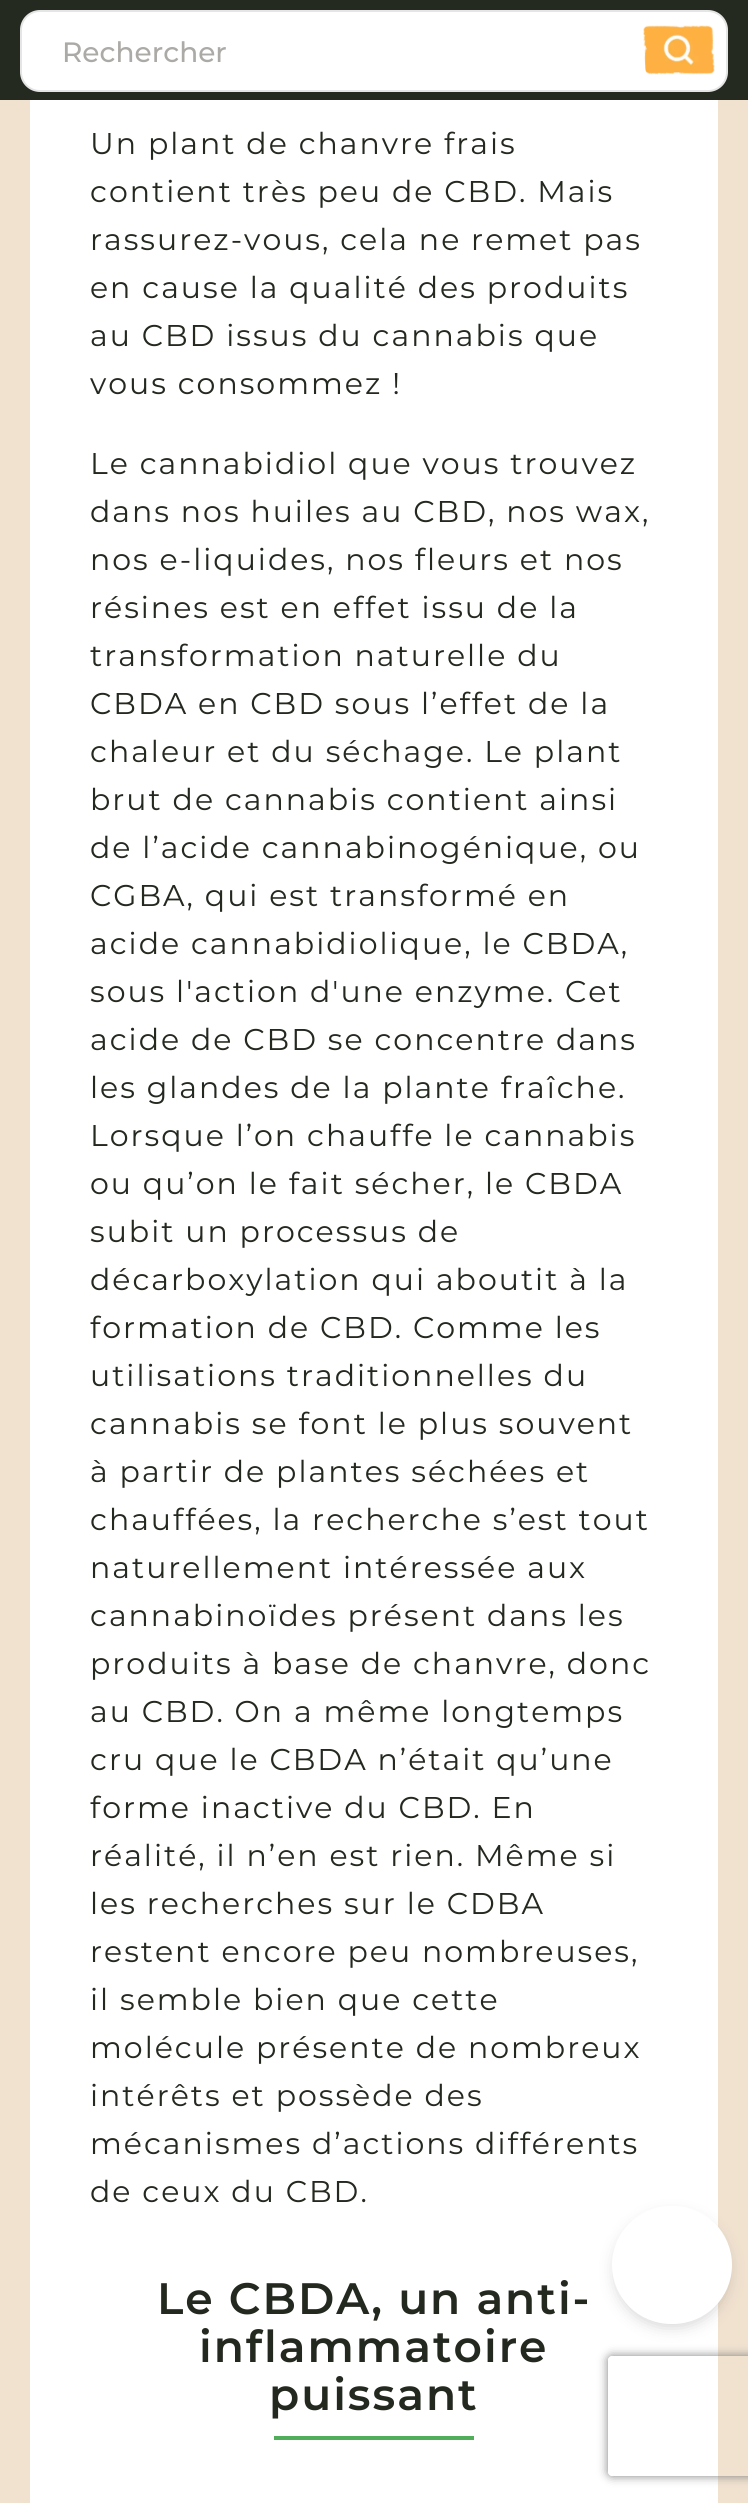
#include <cairo.h>
#include <math.h>
#include <stddef.h>


static void spaced_text(cairo_t *cr, double x, double y, const char *s, double letter, double word) {
    cairo_move_to(cr, x, y);
    while (*s) {
        char ch[5] = {0};
        int n = 0;
        do ch[n++] = *s++; while ((*s & 0xC0) == 0x80);
        cairo_show_text(cr, ch);
        cairo_rel_move_to(cr, letter + word * (*ch == ' '), 0);
    }
}

static void round_rect(cairo_t *cr, double x, double y, double w, double h, double r) {
    cairo_new_sub_path(cr);
    cairo_arc(cr, x + w - r, y + h - r, r, 0, M_PI / 2);
    cairo_arc(cr, x + r, y + h - r, r, M_PI / 2, M_PI);
    cairo_arc(cr, x + r, y + r, r, M_PI, 1.5 * M_PI);
    cairo_arc(cr, x + w - r, y + r, r, 1.5 * M_PI, 2 * M_PI);
    cairo_close_path(cr);
}

static void shadow(cairo_t *cr, double x, double y, double w, double h, double r, double blur, double alpha) {
    cairo_push_group_with_content(cr, CAIRO_CONTENT_ALPHA);
    cairo_set_operator(cr, CAIRO_OPERATOR_SOURCE);
    for (int i = 15; i >= -15 && fmin(w, h) + blur * i / 3 > 0; i -= 2) {
        double e = blur * i / 6;
        cairo_set_source_rgba(cr, 0, 0, 0, alpha * erfc((i - 1) / 8.5) / 2);
        round_rect(cr, x - e, y - e, w + 2 * e, h + 2 * e, fmax(0, fmin(r + e + blur * .6, fmin(w, h) / 2 + e)));
        cairo_fill(cr);
    }
    cairo_pattern_t *soft = cairo_pop_group(cr);
    cairo_mask(cr, soft);
    cairo_pattern_destroy(soft);
}

static void picture(cairo_t *cr, const char *path, double x, double y, double w, double h) {
    cairo_surface_t *image = cairo_image_surface_create_from_png(path);
    cairo_save(cr);
    cairo_set_source_surface(cr, image, x, y);
    cairo_rectangle(cr, x, y, w, h);
    cairo_fill(cr);
    cairo_restore(cr);
    cairo_surface_destroy(image);
}

int main(void) {
    cairo_surface_t *surface = cairo_image_surface_create(CAIRO_FORMAT_RGB24, 748, 2503);
    cairo_t *cr = cairo_create(surface);
    cairo_font_options_t *options = cairo_font_options_create();
    cairo_font_options_set_hint_metrics(options, CAIRO_HINT_METRICS_OFF);
    cairo_font_options_set_hint_style(options, CAIRO_HINT_STYLE_NONE);
    cairo_set_font_options(cr, options);
    cairo_set_miter_limit(cr, 4);
    cairo_set_source_rgb(cr, 0.945, 0.886, 0.816);
    cairo_paint(cr);
    cairo_set_source_rgb(cr, 0.145, 0.165, 0.129);
    cairo_rectangle(cr, 0, 0, 748, 100);
    cairo_fill(cr);
    cairo_set_source_rgb(cr, 1, 1, 1);
    round_rect(cr, 21, 11, 706, 80, 19);
    cairo_fill_preserve(cr);
    cairo_set_source_rgb(cr, 0.898, 0.898, 0.898);
    cairo_stroke(cr);
    cairo_select_font_face(cr, "Montserrat Medium", CAIRO_FONT_SLANT_NORMAL, CAIRO_FONT_WEIGHT_NORMAL);
    cairo_set_font_size(cr, 28);
    cairo_set_source_rgb(cr, 0.675, 0.667, 0.651);
    cairo_move_to(cr, 62, 62);
    cairo_show_text(cr, "Rechercher");
    picture(cr, "img1.png", 643, 25, 72, 50);
    cairo_set_source_rgb(cr, 1, 1, 1);
    cairo_rectangle(cr, 30, 100, 688, 2403);
    cairo_fill(cr);
    cairo_select_font_face(cr, "Montserrat", CAIRO_FONT_SLANT_NORMAL, CAIRO_FONT_WEIGHT_NORMAL);
    cairo_set_font_size(cr, 30);
    cairo_set_source_rgb(cr, 0.141, 0.161, 0.125);
    spaced_text(cr, 90, 154, "Un plant de chanvre frais", 2, 0);
    spaced_text(cr, 90, 202, "contient très peu de CBD. Mais", 2, 0);
    spaced_text(cr, 90, 250, "rassurez-vous, cela ne remet pas", 2, 0);
    spaced_text(cr, 90, 298, "en cause la qualité des produits", 2, 0);
    spaced_text(cr, 90, 346, "au CBD issus du cannabis que", 2, 0);
    spaced_text(cr, 90, 394, "vous consommez !", 2, 0);
    spaced_text(cr, 90, 474, "Le cannabidiol que vous trouvez", 2, 0);
    spaced_text(cr, 90, 522, "dans nos huiles au CBD, nos wax,", 2, 0);
    spaced_text(cr, 90, 570, "nos e-liquides, nos fleurs et nos", 2, 0);
    spaced_text(cr, 90, 618, "résines est en effet issu de la", 2, 0);
    spaced_text(cr, 90, 666, "transformation naturelle du", 2, 0);
    spaced_text(cr, 90, 714, "CBDA en CBD sous l’effet de la", 2, 0);
    spaced_text(cr, 90, 762, "chaleur et du séchage. Le plant", 2, 0);
    spaced_text(cr, 90, 810, "brut de cannabis contient ainsi", 2, 0);
    spaced_text(cr, 90, 858, "de l’acide cannabinogénique, ou", 2, 0);
    spaced_text(cr, 90, 906, "CGBA, qui est transformé en", 2, 0);
    spaced_text(cr, 90, 954, "acide cannabidiolique, le CBDA,", 2, 0);
    spaced_text(cr, 90, 1002, "sous l'action d'une enzyme. Cet", 2, 0);
    spaced_text(cr, 90, 1050, "acide de CBD se concentre dans", 2, 0);
    spaced_text(cr, 90, 1098, "les glandes de la plante fraîche.", 2, 0);
    spaced_text(cr, 90, 1146, "Lorsque l’on chauffe le cannabis", 2, 0);
    spaced_text(cr, 90, 1194, "ou qu’on le fait sécher, le CBDA", 2, 0);
    spaced_text(cr, 90, 1242, "subit un processus de", 2, 0);
    spaced_text(cr, 90, 1290, "décarboxylation qui aboutit à la", 2, 0);
    spaced_text(cr, 90, 1338, "formation de CBD. Comme les", 2, 0);
    spaced_text(cr, 90, 1386, "utilisations traditionnelles du", 2, 0);
    spaced_text(cr, 90, 1434, "cannabis se font le plus souvent", 2, 0);
    spaced_text(cr, 90, 1482, "à partir de plantes séchées et", 2, 0);
    spaced_text(cr, 90, 1530, "chauffées, la recherche s’est tout", 2, 0);
    spaced_text(cr, 90, 1578, "naturellement intéressée aux", 2, 0);
    spaced_text(cr, 90, 1626, "cannabinoïdes présent dans les", 2, 0);
    spaced_text(cr, 90, 1674, "produits à base de chanvre, donc", 2, 0);
    spaced_text(cr, 90, 1722, "au CBD. On a même longtemps", 2, 0);
    spaced_text(cr, 90, 1770, "cru que le CBDA n’était qu’une", 2, 0);
    spaced_text(cr, 90, 1818, "forme inactive du CBD. En", 2, 0);
    spaced_text(cr, 90, 1866, "réalité, il n’en est rien. Même si", 2, 0);
    spaced_text(cr, 90, 1914, "les recherches sur le CDBA", 2, 0);
    spaced_text(cr, 90, 1962, "restent encore peu nombreuses,", 2, 0);
    spaced_text(cr, 90, 2010, "il semble bien que cette", 2, 0);
    spaced_text(cr, 90, 2058, "molécule présente de nombreux", 2, 0);
    spaced_text(cr, 90, 2106, "intérêts et possède des", 2, 0);
    spaced_text(cr, 90, 2154, "mécanismes d’actions différents", 2, 0);
    spaced_text(cr, 90, 2202, "de ceux du CBD.", 2, 0);
    cairo_select_font_face(cr, "Montserrat SemiBold", CAIRO_FONT_SLANT_NORMAL, CAIRO_FONT_WEIGHT_NORMAL);
    cairo_set_font_size(cr, 44);
    spaced_text(cr, 157, 2314, "Le CBDA, un anti-", 2, 0);
    spaced_text(cr, 199, 2362, "inflammatoire", 2, 0);
    spaced_text(cr, 269, 2410, "puissant", 2, 0);
    cairo_set_source_rgb(cr, 0.314, 0.678, 0.349);
    cairo_rectangle(cr, 274, 2436, 200, 4);
    cairo_fill(cr);
    cairo_set_source_rgb(cr, 0, 0, 0);
    shadow(cr, 616, 2216, 112, 110, 55, 8, 0.18);
    cairo_set_source_rgb(cr, 1, 1, 1);
    round_rect(cr, 612, 2206, 120, 118, 59);
    cairo_fill(cr);
    cairo_save(cr);
    cairo_set_fill_rule(cr, CAIRO_FILL_RULE_EVEN_ODD);
    cairo_new_path(cr);
    cairo_move_to(cr, 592, 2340);
    cairo_line_to(cr, 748, 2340);
    cairo_line_to(cr, 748, 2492);
    cairo_line_to(cr, 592, 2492);
    cairo_close_path(cr);
    cairo_move_to(cr, 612, 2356);
    cairo_line_to(cr, 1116, 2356);
    cairo_curve_to(cr, 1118, 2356, 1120, 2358, 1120, 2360);
    cairo_line_to(cr, 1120, 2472);
    cairo_curve_to(cr, 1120, 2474, 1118, 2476, 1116, 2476);
    cairo_line_to(cr, 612, 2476);
    cairo_curve_to(cr, 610, 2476, 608, 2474, 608, 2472);
    cairo_line_to(cr, 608, 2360);
    cairo_curve_to(cr, 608, 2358, 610, 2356, 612, 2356);
    cairo_close_path(cr);
    cairo_clip(cr);
    cairo_set_source_rgb(cr, 0.502, 0.502, 0.502);
    shadow(cr, 608, 2356, 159, 120, 4, 5, 1);
    cairo_restore(cr);
    cairo_surface_write_to_png(surface, "page.png");
    cairo_font_options_destroy(options);
    cairo_destroy(cr);
    cairo_surface_destroy(surface);
    return 0;
}
